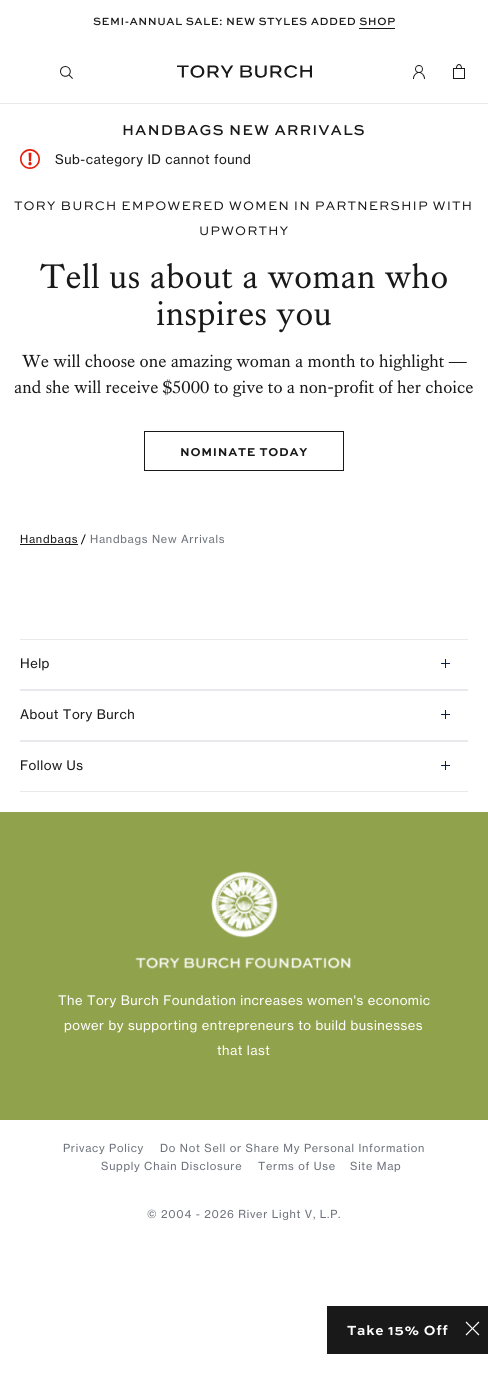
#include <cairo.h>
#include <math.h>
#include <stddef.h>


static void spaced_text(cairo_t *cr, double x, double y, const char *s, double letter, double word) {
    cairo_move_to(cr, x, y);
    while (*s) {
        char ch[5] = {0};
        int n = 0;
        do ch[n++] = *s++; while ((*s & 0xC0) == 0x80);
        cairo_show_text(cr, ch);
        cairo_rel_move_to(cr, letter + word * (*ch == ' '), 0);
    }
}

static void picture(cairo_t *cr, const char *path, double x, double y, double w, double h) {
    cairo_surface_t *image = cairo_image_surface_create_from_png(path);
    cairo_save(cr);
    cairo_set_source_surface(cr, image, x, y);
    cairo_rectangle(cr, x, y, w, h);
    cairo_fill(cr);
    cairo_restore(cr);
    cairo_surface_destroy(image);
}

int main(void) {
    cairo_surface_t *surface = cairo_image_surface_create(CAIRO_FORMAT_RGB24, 488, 1373);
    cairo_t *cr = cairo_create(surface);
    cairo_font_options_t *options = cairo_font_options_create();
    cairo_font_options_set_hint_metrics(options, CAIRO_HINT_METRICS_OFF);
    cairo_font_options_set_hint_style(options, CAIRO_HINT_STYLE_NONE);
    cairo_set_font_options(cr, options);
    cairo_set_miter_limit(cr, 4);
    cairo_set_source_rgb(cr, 1, 1, 1);
    cairo_paint(cr);
    cairo_select_font_face(cr, "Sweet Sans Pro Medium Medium", CAIRO_FONT_SLANT_NORMAL, CAIRO_FONT_WEIGHT_NORMAL);
    cairo_set_font_size(cr, 11);
    cairo_set_source_rgb(cr, 0.098, 0.098, 0.098);
    spaced_text(cr, 93, 25, "SEMI-ANNUAL SALE: NEW STYLES ADDED SHOP", 0.5, 0);
    cairo_rectangle(cr, 359, 28, 36, 1);
    cairo_fill(cr);
    cairo_set_source_rgb(cr, 0.91, 0.914, 0.922);
    cairo_rectangle(cr, 0, 103, 488, 1);
    cairo_fill(cr);
    picture(cr, "img1.png", 60, 66, 13, 13);
    picture(cr, "img2.png", 177, 65, 135, 13);
    picture(cr, "img3.png", 413, 65, 12, 14);
    picture(cr, "img4.png", 453, 64, 12, 15);
    cairo_set_font_size(cr, 15);
    cairo_set_source_rgb(cr, 0.098, 0.098, 0.098);
    spaced_text(cr, 122, 135, "HANDBAGS NEW ARRIVALS", 1, 0);
    picture(cr, "img5.png", 20, 149, 20, 20);
    cairo_select_font_face(cr, "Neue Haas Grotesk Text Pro", CAIRO_FONT_SLANT_NORMAL, CAIRO_FONT_WEIGHT_NORMAL);
    cairo_set_font_size(cr, 13);
    spaced_text(cr, 55, 164, "Sub-category ID cannot found", 0.5, 0);
    cairo_select_font_face(cr, "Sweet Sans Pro", CAIRO_FONT_SLANT_NORMAL, CAIRO_FONT_WEIGHT_NORMAL);
    spaced_text(cr, 14, 210, "TORY BURCH EMPOWERED WOMEN IN PARTNERSHIP WITH", 1, 0);
    spaced_text(cr, 199, 235, "UPWORTHY", 1, 0);
    cairo_select_font_face(cr, "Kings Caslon", CAIRO_FONT_SLANT_NORMAL, CAIRO_FONT_WEIGHT_NORMAL);
    cairo_set_font_size(cr, 35);
    spaced_text(cr, 40, 288, "Tell us about a woman who", 0.5, 0);
    spaced_text(cr, 156, 325, "inspires you", 0.5, 0);
    cairo_set_font_size(cr, 18);
    cairo_move_to(cr, 22, 367);
    cairo_show_text(cr, "We will choose one amazing woman a month to highlight —");
    cairo_move_to(cr, 14, 393);
    cairo_show_text(cr, "and she will receive $5000 to give to a non-profit of her choice");
    cairo_rectangle(cr, 144.5, 431.5, 199, 39);
    cairo_set_line_width(cr, 1);
    cairo_stroke(cr);
    cairo_select_font_face(cr, "Sweet Sans Pro", CAIRO_FONT_SLANT_NORMAL, CAIRO_FONT_WEIGHT_BOLD);
    cairo_set_font_size(cr, 12);
    spaced_text(cr, 180, 456, "NOMINATE TODAY", 0.75, 0);
    cairo_rectangle(cr, 20, 544, 58, 1);
    cairo_fill(cr);
    cairo_select_font_face(cr, "Neue Haas Grotesk Text Pro", CAIRO_FONT_SLANT_NORMAL, CAIRO_FONT_WEIGHT_NORMAL);
    cairo_set_font_size(cr, 11);
    spaced_text(cr, 20, 543, "Handbags", 0.75, 0);
    cairo_set_source_rgb(cr, 0, 0, 0);
    spaced_text(cr, 81, 543, "/", 0.75, 0);
    cairo_set_source_rgb(cr, 0.424, 0.443, 0.478);
    spaced_text(cr, 90, 543, "Handbags New Arrivals", 0.75, 0);
    cairo_set_source_rgb(cr, 0.91, 0.914, 0.922);
    cairo_rectangle(cr, 20, 639, 448, 1);
    cairo_fill(cr);
    cairo_rectangle(cr, 20, 689, 448, 2);
    cairo_fill(cr);
    cairo_set_font_size(cr, 13);
    cairo_set_source_rgb(cr, 0.098, 0.098, 0.098);
    spaced_text(cr, 20, 668, "Help", 0.5, 0);
    picture(cr, "img6.png", 441, 659, 9, 9);
    cairo_set_source_rgb(cr, 0.91, 0.914, 0.922);
    cairo_rectangle(cr, 20, 740, 448, 2);
    cairo_fill(cr);
    cairo_set_source_rgb(cr, 0.098, 0.098, 0.098);
    spaced_text(cr, 20, 719, "About Tory Burch", 0.5, 0);
    picture(cr, "img6.png", 441, 710, 9, 9);
    cairo_set_source_rgb(cr, 0.91, 0.914, 0.922);
    cairo_rectangle(cr, 20, 791, 448, 1);
    cairo_fill(cr);
    cairo_set_source_rgb(cr, 0.098, 0.098, 0.098);
    spaced_text(cr, 20, 770, "Follow Us", 0.5, 0);
    picture(cr, "img6.png", 441, 761, 9, 9);
    cairo_set_source_rgb(cr, 0.569, 0.635, 0.302);
    cairo_rectangle(cr, 0, 812, 488, 308);
    cairo_fill(cr);
    picture(cr, "img7.png", 135, 871, 216, 98);
    cairo_set_source_rgb(cr, 1, 1, 1);
    spaced_text(cr, 58, 1005, "The Tory Burch Foundation increases women's economic", 0.5, 0);
    spaced_text(cr, 64, 1030, "power by supporting entrepreneurs to build businesses", 0.5, 0);
    spaced_text(cr, 217, 1055, "that last", 0.5, 0);
    cairo_set_font_size(cr, 11);
    cairo_set_source_rgb(cr, 0.424, 0.443, 0.478);
    spaced_text(cr, 63, 1152, "Privacy Policy", 0.75, 0);
    spaced_text(cr, 160, 1152, "Do Not Sell or Share My Personal Information", 0.75, 0);
    spaced_text(cr, 101, 1170, "Supply Chain Disclosure", 0.75, 0);
    spaced_text(cr, 258, 1170, "Terms of Use", 0.75, 0);
    spaced_text(cr, 350, 1170, "Site Map", 0.75, 0);
    spaced_text(cr, 147, 1218, "© 2004 - 2026 River Light V, L.P.", 0.75, 0);
    cairo_set_source_rgb(cr, 0.098, 0.098, 0.098);
    cairo_rectangle(cr, 327, 1306, 161, 48);
    cairo_fill(cr);
    cairo_select_font_face(cr, "Sweet Sans Pro", CAIRO_FONT_SLANT_NORMAL, CAIRO_FONT_WEIGHT_BOLD);
    cairo_set_font_size(cr, 14);
    cairo_set_source_rgb(cr, 1, 1, 1);
    spaced_text(cr, 347, 1335, "Take 15% Off", 0.75, 0);
    picture(cr, "img8.png", 465, 1321, 15, 15);
    cairo_surface_write_to_png(surface, "page.png");
    cairo_font_options_destroy(options);
    cairo_destroy(cr);
    cairo_surface_destroy(surface);
    return 0;
}
